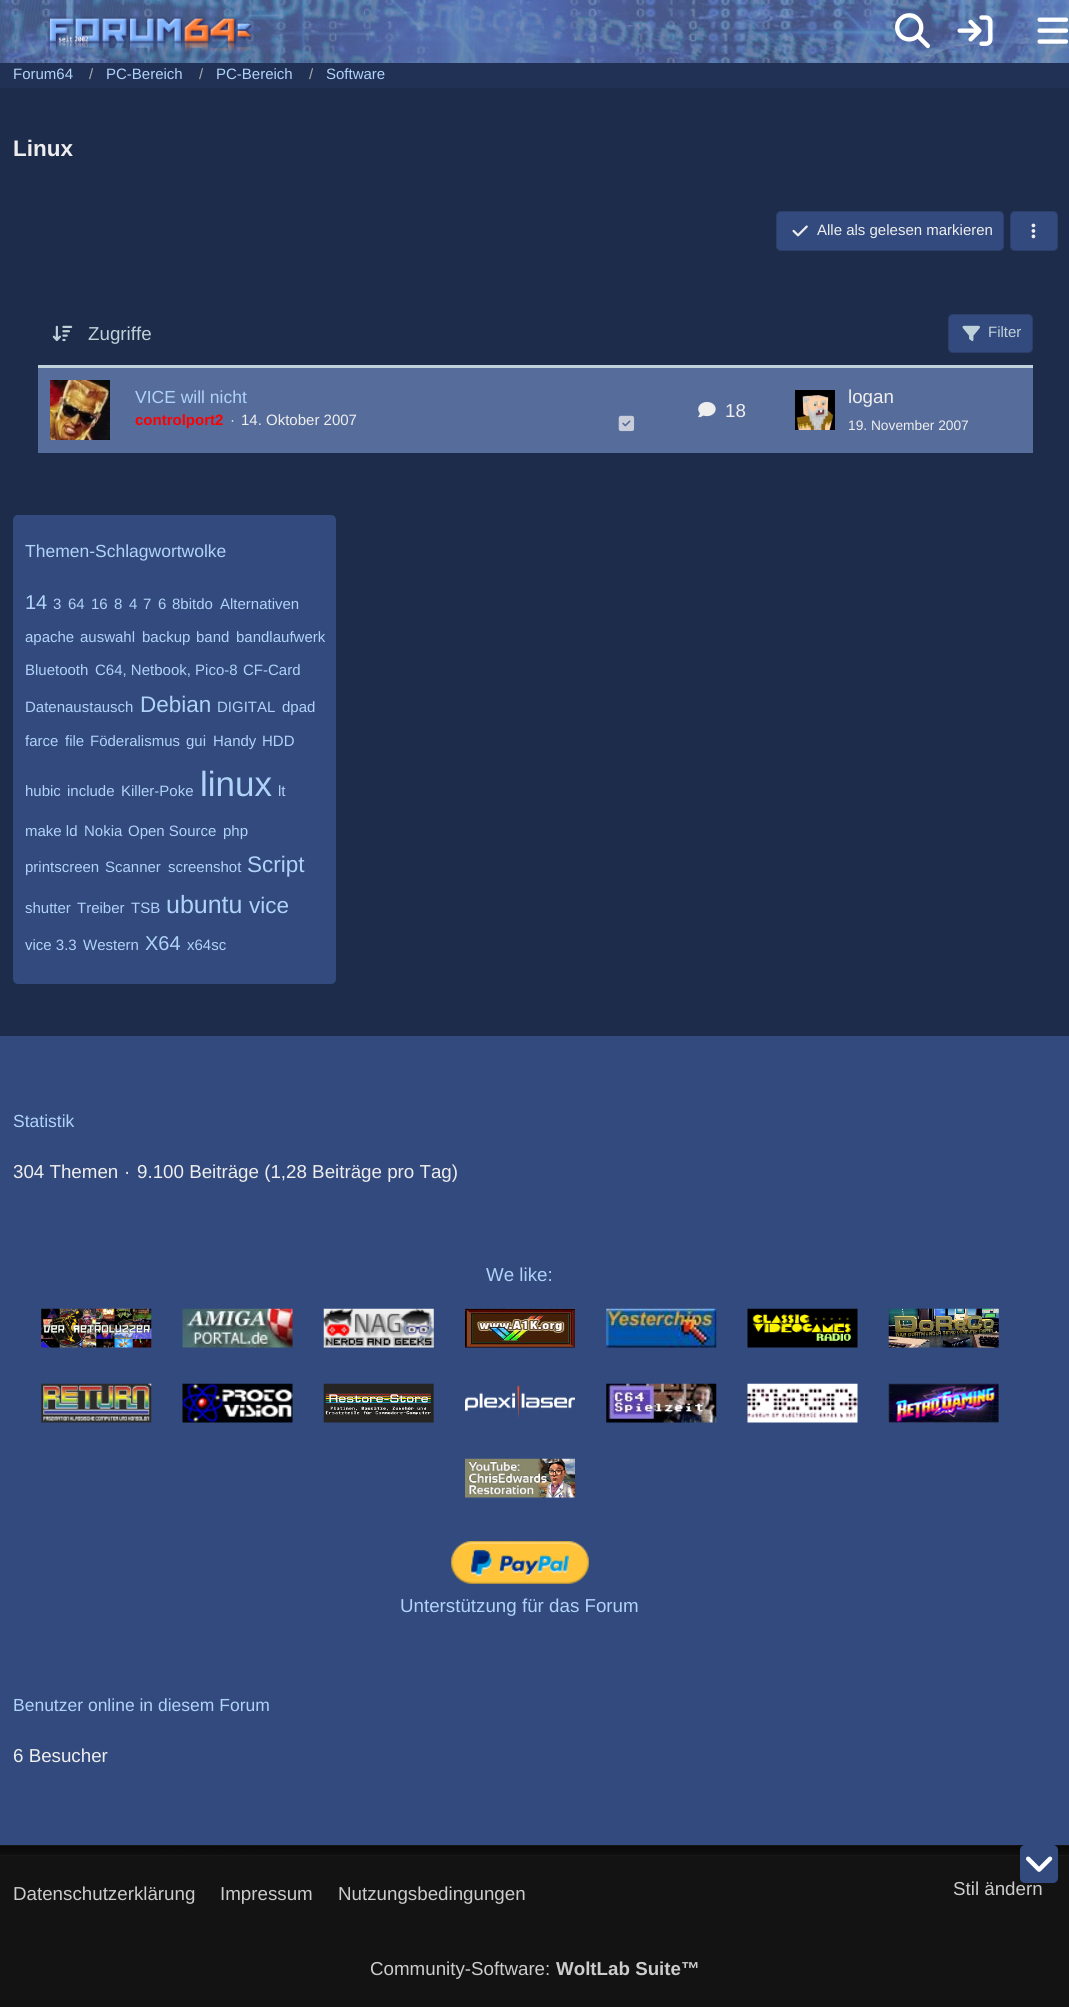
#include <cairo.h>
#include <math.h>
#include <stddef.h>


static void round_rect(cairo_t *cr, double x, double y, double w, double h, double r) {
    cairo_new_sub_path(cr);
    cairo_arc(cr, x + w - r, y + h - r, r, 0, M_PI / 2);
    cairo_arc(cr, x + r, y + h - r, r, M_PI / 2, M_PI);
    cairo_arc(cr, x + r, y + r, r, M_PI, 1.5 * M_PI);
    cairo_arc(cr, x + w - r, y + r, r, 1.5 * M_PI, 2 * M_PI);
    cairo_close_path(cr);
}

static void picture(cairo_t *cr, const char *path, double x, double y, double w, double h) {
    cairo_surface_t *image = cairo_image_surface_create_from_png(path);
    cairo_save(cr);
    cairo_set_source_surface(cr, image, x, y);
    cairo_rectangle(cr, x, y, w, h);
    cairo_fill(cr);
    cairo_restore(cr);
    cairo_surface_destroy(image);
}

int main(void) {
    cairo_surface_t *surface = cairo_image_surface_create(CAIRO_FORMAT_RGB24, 1069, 2007);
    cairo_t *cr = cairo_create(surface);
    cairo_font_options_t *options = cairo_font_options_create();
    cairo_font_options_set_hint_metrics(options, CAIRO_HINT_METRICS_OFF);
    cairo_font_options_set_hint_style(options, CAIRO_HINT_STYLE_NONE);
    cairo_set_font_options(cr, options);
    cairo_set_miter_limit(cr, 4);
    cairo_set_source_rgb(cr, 0.118, 0.173, 0.294);
    cairo_paint(cr);
    picture(cr, "img1.png", 0, 0, 1069, 63);
    picture(cr, "img2.png", 47, 16, 207, 36);
    picture(cr, "img3.png", 895, 13, 35, 36);
    picture(cr, "img4.png", 957, 15, 36, 31);
    picture(cr, "img5.png", 1037, 17, 32, 27);
    cairo_set_source_rgb(cr, 0.129, 0.192, 0.333);
    cairo_rectangle(cr, 0, 63, 1069, 25);
    cairo_fill(cr);
    cairo_select_font_face(cr, "Liberation Sans", CAIRO_FONT_SLANT_NORMAL, CAIRO_FONT_WEIGHT_NORMAL);
    cairo_set_font_size(cr, 15);
    cairo_set_source_rgb(cr, 0.69, 0.827, 0.973);
    cairo_move_to(cr, 13, 79);
    cairo_show_text(cr, "Forum64");
    cairo_set_source_rgb(cr, 0.667, 0.667, 0.667);
    cairo_move_to(cr, 89, 79);
    cairo_show_text(cr, "/");
    cairo_set_source_rgb(cr, 0.69, 0.827, 0.973);
    cairo_move_to(cr, 106, 79);
    cairo_show_text(cr, "PC-Bereich");
    cairo_set_source_rgb(cr, 0.667, 0.667, 0.667);
    cairo_move_to(cr, 199, 79);
    cairo_show_text(cr, "/");
    cairo_set_source_rgb(cr, 0.69, 0.827, 0.973);
    cairo_move_to(cr, 216, 79);
    cairo_show_text(cr, "PC-Bereich");
    cairo_set_source_rgb(cr, 0.667, 0.667, 0.667);
    cairo_move_to(cr, 309, 79);
    cairo_show_text(cr, "/");
    cairo_set_source_rgb(cr, 0.69, 0.827, 0.973);
    cairo_move_to(cr, 326, 79);
    cairo_show_text(cr, "Software");
    cairo_select_font_face(cr, "Liberation Sans", CAIRO_FONT_SLANT_NORMAL, CAIRO_FONT_WEIGHT_BOLD);
    cairo_set_font_size(cr, 22.5);
    cairo_set_source_rgb(cr, 0.933, 0.933, 0.933);
    cairo_move_to(cr, 13, 156);
    cairo_show_text(cr, "Linux");
    cairo_set_source_rgb(cr, 0.196, 0.29, 0.49);
    round_rect(cr, 776, 211, 228, 40, 5);
    cairo_fill(cr);
    round_rect(cr, 776.5, 211.5, 227, 39, 4.5);
    cairo_set_source_rgba(cr, 0, 0, 0, 0.15);
    cairo_set_line_width(cr, 1);
    cairo_stroke(cr);
    picture(cr, "img6.png", 792, 225, 16, 12);
    cairo_select_font_face(cr, "Liberation Sans", CAIRO_FONT_SLANT_NORMAL, CAIRO_FONT_WEIGHT_NORMAL);
    cairo_set_font_size(cr, 15);
    cairo_set_source_rgb(cr, 0.933, 0.933, 0.933);
    cairo_move_to(cr, 817, 235);
    cairo_show_text(cr, "Alle als gelesen markieren");
    cairo_set_source_rgb(cr, 0.196, 0.29, 0.49);
    round_rect(cr, 1010, 211, 48, 40, 5);
    cairo_fill(cr);
    round_rect(cr, 1010.5, 211.5, 47, 39, 4.5);
    cairo_set_source_rgba(cr, 0, 0, 0, 0.15);
    cairo_stroke(cr);
    picture(cr, "img7.png", 1031, 223, 5, 16);
    cairo_set_source_rgb(cr, 0.749, 0.82, 0.851);
    cairo_rectangle(cr, 38, 365, 995, 3);
    cairo_fill(cr);
    picture(cr, "img8.png", 52, 325, 21, 17);
    cairo_set_font_size(cr, 18.75);
    cairo_move_to(cr, 88, 340);
    cairo_show_text(cr, "Zugriffe");
    cairo_set_source_rgb(cr, 0.196, 0.29, 0.49);
    round_rect(cr, 948, 314, 85, 39, 5);
    cairo_fill(cr);
    round_rect(cr, 948.5, 314.5, 84, 38, 4.5);
    cairo_set_source_rgba(cr, 0, 0, 0, 0.15);
    cairo_stroke(cr);
    picture(cr, "img9.png", 962, 325, 18, 17);
    cairo_set_font_size(cr, 15);
    cairo_set_source_rgb(cr, 0.749, 0.82, 0.851);
    cairo_move_to(cr, 988, 337);
    cairo_show_text(cr, "Filter");
    cairo_set_source_rgb(cr, 0.337, 0.424, 0.608);
    cairo_rectangle(cr, 38, 368, 995, 85);
    cairo_fill(cr);
    picture(cr, "img10.png", 50, 380, 60, 60);
    cairo_set_font_size(cr, 17.5);
    cairo_set_source_rgb(cr, 0.69, 0.827, 0.973);
    cairo_move_to(cr, 135, 403);
    cairo_show_text(cr, "VICE will nicht");
    cairo_select_font_face(cr, "Liberation Sans", CAIRO_FONT_SLANT_NORMAL, CAIRO_FONT_WEIGHT_BOLD);
    cairo_set_font_size(cr, 15);
    cairo_set_source_rgb(cr, 1, 0, 0);
    cairo_move_to(cr, 135, 425);
    cairo_show_text(cr, "controlport2");
    cairo_select_font_face(cr, "Liberation Sans", CAIRO_FONT_SLANT_NORMAL, CAIRO_FONT_WEIGHT_NORMAL);
    cairo_set_source_rgb(cr, 0.933, 0.933, 0.933);
    cairo_move_to(cr, 230, 425);
    cairo_show_text(cr, "·");
    cairo_move_to(cr, 241, 425);
    cairo_show_text(cr, "14. Oktober 2007");
    picture(cr, "img11.png", 618, 415, 17, 17);
    picture(cr, "img12.png", 698, 401, 18, 17);
    cairo_set_font_size(cr, 18.75);
    cairo_move_to(cr, 725, 417);
    cairo_show_text(cr, "18");
    picture(cr, "img13.png", 795, 390, 40, 40);
    cairo_move_to(cr, 848, 403);
    cairo_show_text(cr, "logan");
    cairo_set_font_size(cr, 13.75);
    cairo_move_to(cr, 848, 430);
    cairo_show_text(cr, "19. November 2007");
    cairo_set_source_rgb(cr, 0.196, 0.29, 0.49);
    round_rect(cr, 13, 515, 323, 469, 5);
    cairo_fill(cr);
    cairo_set_font_size(cr, 17.5);
    cairo_set_source_rgb(cr, 0.69, 0.827, 0.973);
    cairo_move_to(cr, 25, 557);
    cairo_show_text(cr, "Themen-Schlagwortwolke");
    cairo_set_font_size(cr, 20);
    cairo_move_to(cr, 25, 609);
    cairo_show_text(cr, "14");
    cairo_set_font_size(cr, 15);
    cairo_move_to(cr, 53, 609);
    cairo_show_text(cr, "3");
    cairo_move_to(cr, 68, 609);
    cairo_show_text(cr, "64");
    cairo_move_to(cr, 91, 609);
    cairo_show_text(cr, "16");
    cairo_move_to(cr, 114, 609);
    cairo_show_text(cr, "8");
    cairo_move_to(cr, 129, 609);
    cairo_show_text(cr, "4");
    cairo_move_to(cr, 143, 609);
    cairo_show_text(cr, "7");
    cairo_move_to(cr, 158, 609);
    cairo_show_text(cr, "6");
    cairo_move_to(cr, 172, 609);
    cairo_show_text(cr, "8bitdo");
    cairo_move_to(cr, 220, 609);
    cairo_show_text(cr, "Alternativen");
    cairo_move_to(cr, 25, 642);
    cairo_show_text(cr, "apache");
    cairo_move_to(cr, 80, 642);
    cairo_show_text(cr, "auswahl");
    cairo_move_to(cr, 142, 642);
    cairo_show_text(cr, "backup");
    cairo_move_to(cr, 196, 642);
    cairo_show_text(cr, "band");
    cairo_move_to(cr, 236, 642);
    cairo_show_text(cr, "bandlaufwerk");
    cairo_move_to(cr, 25, 675);
    cairo_show_text(cr, "Bluetooth");
    cairo_move_to(cr, 95, 675);
    cairo_show_text(cr, "C64, Netbook, Pico-8");
    cairo_move_to(cr, 243, 675);
    cairo_show_text(cr, "CF-Card");
    cairo_move_to(cr, 25, 712);
    cairo_show_text(cr, "Datenaustausch");
    cairo_set_font_size(cr, 22.5);
    cairo_move_to(cr, 140, 712);
    cairo_show_text(cr, "Debian");
    cairo_set_font_size(cr, 15);
    cairo_move_to(cr, 217, 712);
    cairo_show_text(cr, "DIGITAL");
    cairo_move_to(cr, 282, 712);
    cairo_show_text(cr, "dpad");
    cairo_move_to(cr, 25, 746);
    cairo_show_text(cr, "farce");
    cairo_move_to(cr, 65, 746);
    cairo_show_text(cr, "file");
    cairo_move_to(cr, 90, 746);
    cairo_show_text(cr, "Föderalismus");
    cairo_move_to(cr, 186, 746);
    cairo_show_text(cr, "gui");
    cairo_move_to(cr, 213, 746);
    cairo_show_text(cr, "Handy");
    cairo_move_to(cr, 262, 746);
    cairo_show_text(cr, "HDD");
    cairo_move_to(cr, 25, 796);
    cairo_show_text(cr, "hubic");
    cairo_move_to(cr, 67, 796);
    cairo_show_text(cr, "include");
    cairo_move_to(cr, 121, 796);
    cairo_show_text(cr, "Killer-Poke");
    cairo_set_font_size(cr, 35);
    cairo_move_to(cr, 200, 796);
    cairo_show_text(cr, "linux");
    cairo_set_font_size(cr, 15);
    cairo_move_to(cr, 278, 796);
    cairo_show_text(cr, "lt");
    cairo_move_to(cr, 25, 836);
    cairo_show_text(cr, "make ld");
    cairo_move_to(cr, 84, 836);
    cairo_show_text(cr, "Nokia");
    cairo_move_to(cr, 128, 836);
    cairo_show_text(cr, "Open Source");
    cairo_move_to(cr, 223, 836);
    cairo_show_text(cr, "php");
    cairo_move_to(cr, 25, 872);
    cairo_show_text(cr, "printscreen");
    cairo_move_to(cr, 105, 872);
    cairo_show_text(cr, "Scanner");
    cairo_move_to(cr, 168, 872);
    cairo_show_text(cr, "screenshot");
    cairo_set_font_size(cr, 22.5);
    cairo_move_to(cr, 247, 872);
    cairo_show_text(cr, "Script");
    cairo_set_font_size(cr, 15);
    cairo_move_to(cr, 25, 913);
    cairo_show_text(cr, "shutter");
    cairo_move_to(cr, 77, 913);
    cairo_show_text(cr, "Treiber");
    cairo_move_to(cr, 131, 913);
    cairo_show_text(cr, "TSB");
    cairo_set_font_size(cr, 25);
    cairo_move_to(cr, 166, 913);
    cairo_show_text(cr, "ubuntu");
    cairo_set_font_size(cr, 22.5);
    cairo_move_to(cr, 249, 913);
    cairo_show_text(cr, "vice");
    cairo_set_font_size(cr, 15);
    cairo_move_to(cr, 25, 950);
    cairo_show_text(cr, "vice 3.3");
    cairo_move_to(cr, 83, 950);
    cairo_show_text(cr, "Western");
    cairo_set_font_size(cr, 20);
    cairo_move_to(cr, 145, 950);
    cairo_show_text(cr, "X64");
    cairo_set_font_size(cr, 15);
    cairo_move_to(cr, 187, 950);
    cairo_show_text(cr, "x64sc");
    cairo_set_source_rgb(cr, 0.196, 0.29, 0.49);
    cairo_rectangle(cr, 0, 1036, 1069, 809);
    cairo_fill(cr);
    cairo_set_font_size(cr, 17.5);
    cairo_set_source_rgb(cr, 0.69, 0.827, 0.973);
    cairo_move_to(cr, 13, 1127);
    cairo_show_text(cr, "Statistik");
    cairo_set_font_size(cr, 18.75);
    cairo_set_source_rgb(cr, 0.933, 0.933, 0.933);
    cairo_move_to(cr, 13, 1178);
    cairo_show_text(cr, "304 Themen");
    cairo_move_to(cr, 124, 1178);
    cairo_show_text(cr, "·");
    cairo_move_to(cr, 137, 1178);
    cairo_show_text(cr, "9.100 Beiträge (1,28 Beiträge pro Tag)");
    cairo_set_source_rgb(cr, 0.69, 0.827, 0.973);
    cairo_move_to(cr, 486, 1281);
    cairo_show_text(cr, "We like:");
    picture(cr, "img14.png", 41, 1308, 111, 40);
    picture(cr, "img15.png", 182, 1308, 111, 40);
    picture(cr, "img16.png", 323, 1308, 111, 40);
    picture(cr, "img17.png", 465, 1308, 110, 40);
    picture(cr, "img18.png", 606, 1308, 111, 40);
    picture(cr, "img19.png", 747, 1308, 111, 40);
    picture(cr, "img20.png", 888, 1308, 111, 40);
    picture(cr, "img21.png", 41, 1383, 111, 40);
    picture(cr, "img22.png", 182, 1383, 111, 40);
    picture(cr, "img23.png", 323, 1383, 111, 40);
    picture(cr, "img24.png", 465, 1385, 110, 35);
    picture(cr, "img25.png", 606, 1383, 111, 40);
    picture(cr, "img26.png", 747, 1383, 111, 40);
    picture(cr, "img27.png", 888, 1383, 111, 40);
    picture(cr, "img28.png", 465, 1458, 110, 40);
    picture(cr, "img29.png", 451, 1541, 138, 43);
    cairo_move_to(cr, 400, 1612);
    cairo_show_text(cr, "Unterstützung für das Forum");
    cairo_set_font_size(cr, 17.5);
    cairo_move_to(cr, 13, 1711);
    cairo_show_text(cr, "Benutzer online in diesem Forum");
    cairo_set_font_size(cr, 18.75);
    cairo_set_source_rgb(cr, 0.933, 0.933, 0.933);
    cairo_move_to(cr, 13, 1762);
    cairo_show_text(cr, "6 Besucher");
    cairo_set_source_rgb(cr, 0.075, 0.075, 0.075);
    cairo_rectangle(cr, 0, 1845, 1069, 162);
    cairo_fill(cr);
    picture(cr, "img30.png", 0, 1846, 1069, 10);
    cairo_set_source_rgb(cr, 0.8, 0.8, 0.8);
    cairo_move_to(cr, 13, 1900);
    cairo_show_text(cr, "Datenschutzerklärung");
    cairo_move_to(cr, 220, 1900);
    cairo_show_text(cr, "Impressum");
    cairo_move_to(cr, 338, 1900);
    cairo_show_text(cr, "Nutzungsbedingungen");
    cairo_move_to(cr, 953, 1895);
    cairo_show_text(cr, "Stil ändern");
    cairo_move_to(cr, 370, 1975);
    cairo_show_text(cr, "Community-Software:");
    cairo_select_font_face(cr, "Liberation Sans", CAIRO_FONT_SLANT_NORMAL, CAIRO_FONT_WEIGHT_BOLD);
    cairo_move_to(cr, 556, 1975);
    cairo_show_text(cr, "WoltLab Suite™");
    cairo_set_source_rgb(cr, 0.196, 0.29, 0.49);
    round_rect(cr, 1020, 1845, 38, 38, 5);
    cairo_fill(cr);
    picture(cr, "img31.png", 1026, 1856, 27, 16);
    cairo_surface_write_to_png(surface, "page.png");
    cairo_font_options_destroy(options);
    cairo_destroy(cr);
    cairo_surface_destroy(surface);
    return 0;
}
